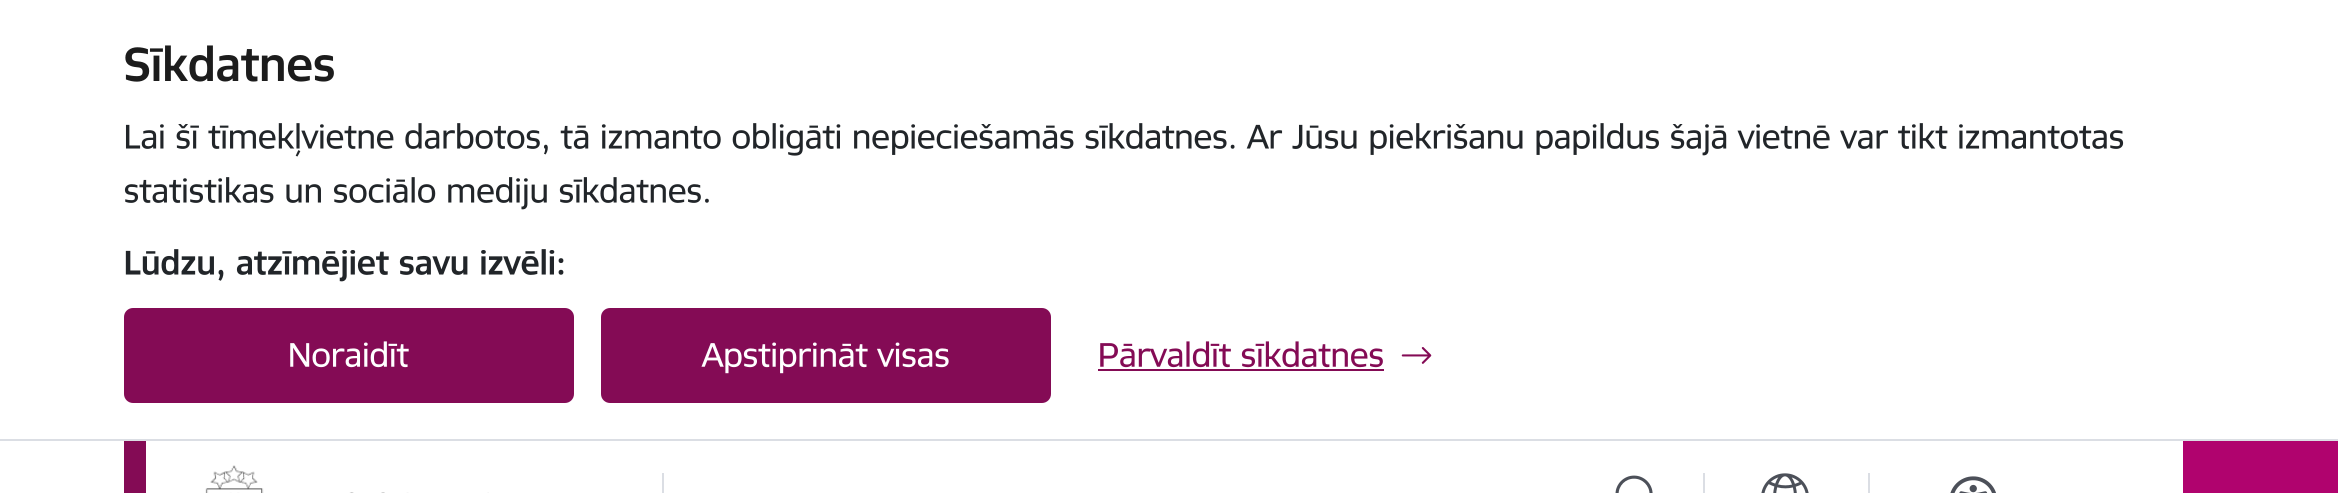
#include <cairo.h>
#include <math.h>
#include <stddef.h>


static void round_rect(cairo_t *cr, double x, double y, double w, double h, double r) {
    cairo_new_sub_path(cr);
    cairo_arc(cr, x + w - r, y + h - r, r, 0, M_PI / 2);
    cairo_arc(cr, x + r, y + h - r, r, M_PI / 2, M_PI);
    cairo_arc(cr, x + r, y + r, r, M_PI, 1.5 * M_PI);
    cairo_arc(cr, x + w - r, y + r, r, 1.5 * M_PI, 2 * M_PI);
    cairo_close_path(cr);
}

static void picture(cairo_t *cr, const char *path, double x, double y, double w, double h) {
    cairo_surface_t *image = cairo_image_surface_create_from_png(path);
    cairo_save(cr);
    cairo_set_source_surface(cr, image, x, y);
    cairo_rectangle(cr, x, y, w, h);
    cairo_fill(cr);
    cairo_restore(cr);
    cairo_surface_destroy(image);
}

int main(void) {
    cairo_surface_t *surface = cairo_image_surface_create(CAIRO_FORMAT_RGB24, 2338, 493);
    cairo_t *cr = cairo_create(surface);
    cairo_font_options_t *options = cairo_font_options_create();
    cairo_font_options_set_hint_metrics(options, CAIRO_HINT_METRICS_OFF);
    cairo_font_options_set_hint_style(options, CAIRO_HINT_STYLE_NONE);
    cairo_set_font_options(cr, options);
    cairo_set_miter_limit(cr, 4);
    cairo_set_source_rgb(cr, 1, 1, 1);
    cairo_paint(cr);
    cairo_set_source_rgb(cr, 0.859, 0.871, 0.894);
    cairo_rectangle(cr, 0, 439, 2338, 2);
    cairo_fill(cr);
    picture(cr, "img1.png", 125, 45, 209, 37);
    picture(cr, "img2.png", 125, 123, 1999, 34);
    picture(cr, "img3.png", 124, 177, 585, 33);
    picture(cr, "img4.png", 125, 249, 439, 33);
    cairo_set_source_rgb(cr, 0.518, 0.043, 0.333);
    round_rect(cr, 125, 309, 448, 93, 8);
    cairo_fill_preserve(cr);
    cairo_stroke(cr);
    picture(cr, "img5.png", 290, 341, 119, 27);
    round_rect(cr, 602, 309, 448, 93, 8);
    cairo_fill_preserve(cr);
    cairo_stroke(cr);
    picture(cr, "img6.png", 701, 342, 248, 32);
    picture(cr, "img7.png", 1100, 341, 283, 27);
    picture(cr, "img8.png", 1401, 347, 31, 17);
    cairo_rectangle(cr, 1098, 369, 286, 2);
    cairo_fill(cr);
    cairo_rectangle(cr, 124, 441, 22, 52);
    cairo_fill(cr);
    picture(cr, "img9.png", 205, 465, 284, 28);
    cairo_set_source_rgb(cr, 0.859, 0.871, 0.894);
    cairo_rectangle(cr, 662, 473, 2, 20);
    cairo_fill(cr);
    picture(cr, "img10.png", 1615, 475, 38, 18);
    cairo_rectangle(cr, 1703, 473, 2, 20);
    cairo_fill(cr);
    picture(cr, "img11.png", 1761, 473, 48, 20);
    cairo_rectangle(cr, 1868, 473, 2, 20);
    cairo_fill(cr);
    picture(cr, "img12.png", 1950, 476, 46, 17);
    cairo_set_source_rgb(cr, 0.69, 0.012, 0.431);
    cairo_rectangle(cr, 2183, 441, 155, 52);
    cairo_fill(cr);
    cairo_surface_write_to_png(surface, "page.png");
    cairo_font_options_destroy(options);
    cairo_destroy(cr);
    cairo_surface_destroy(surface);
    return 0;
}
